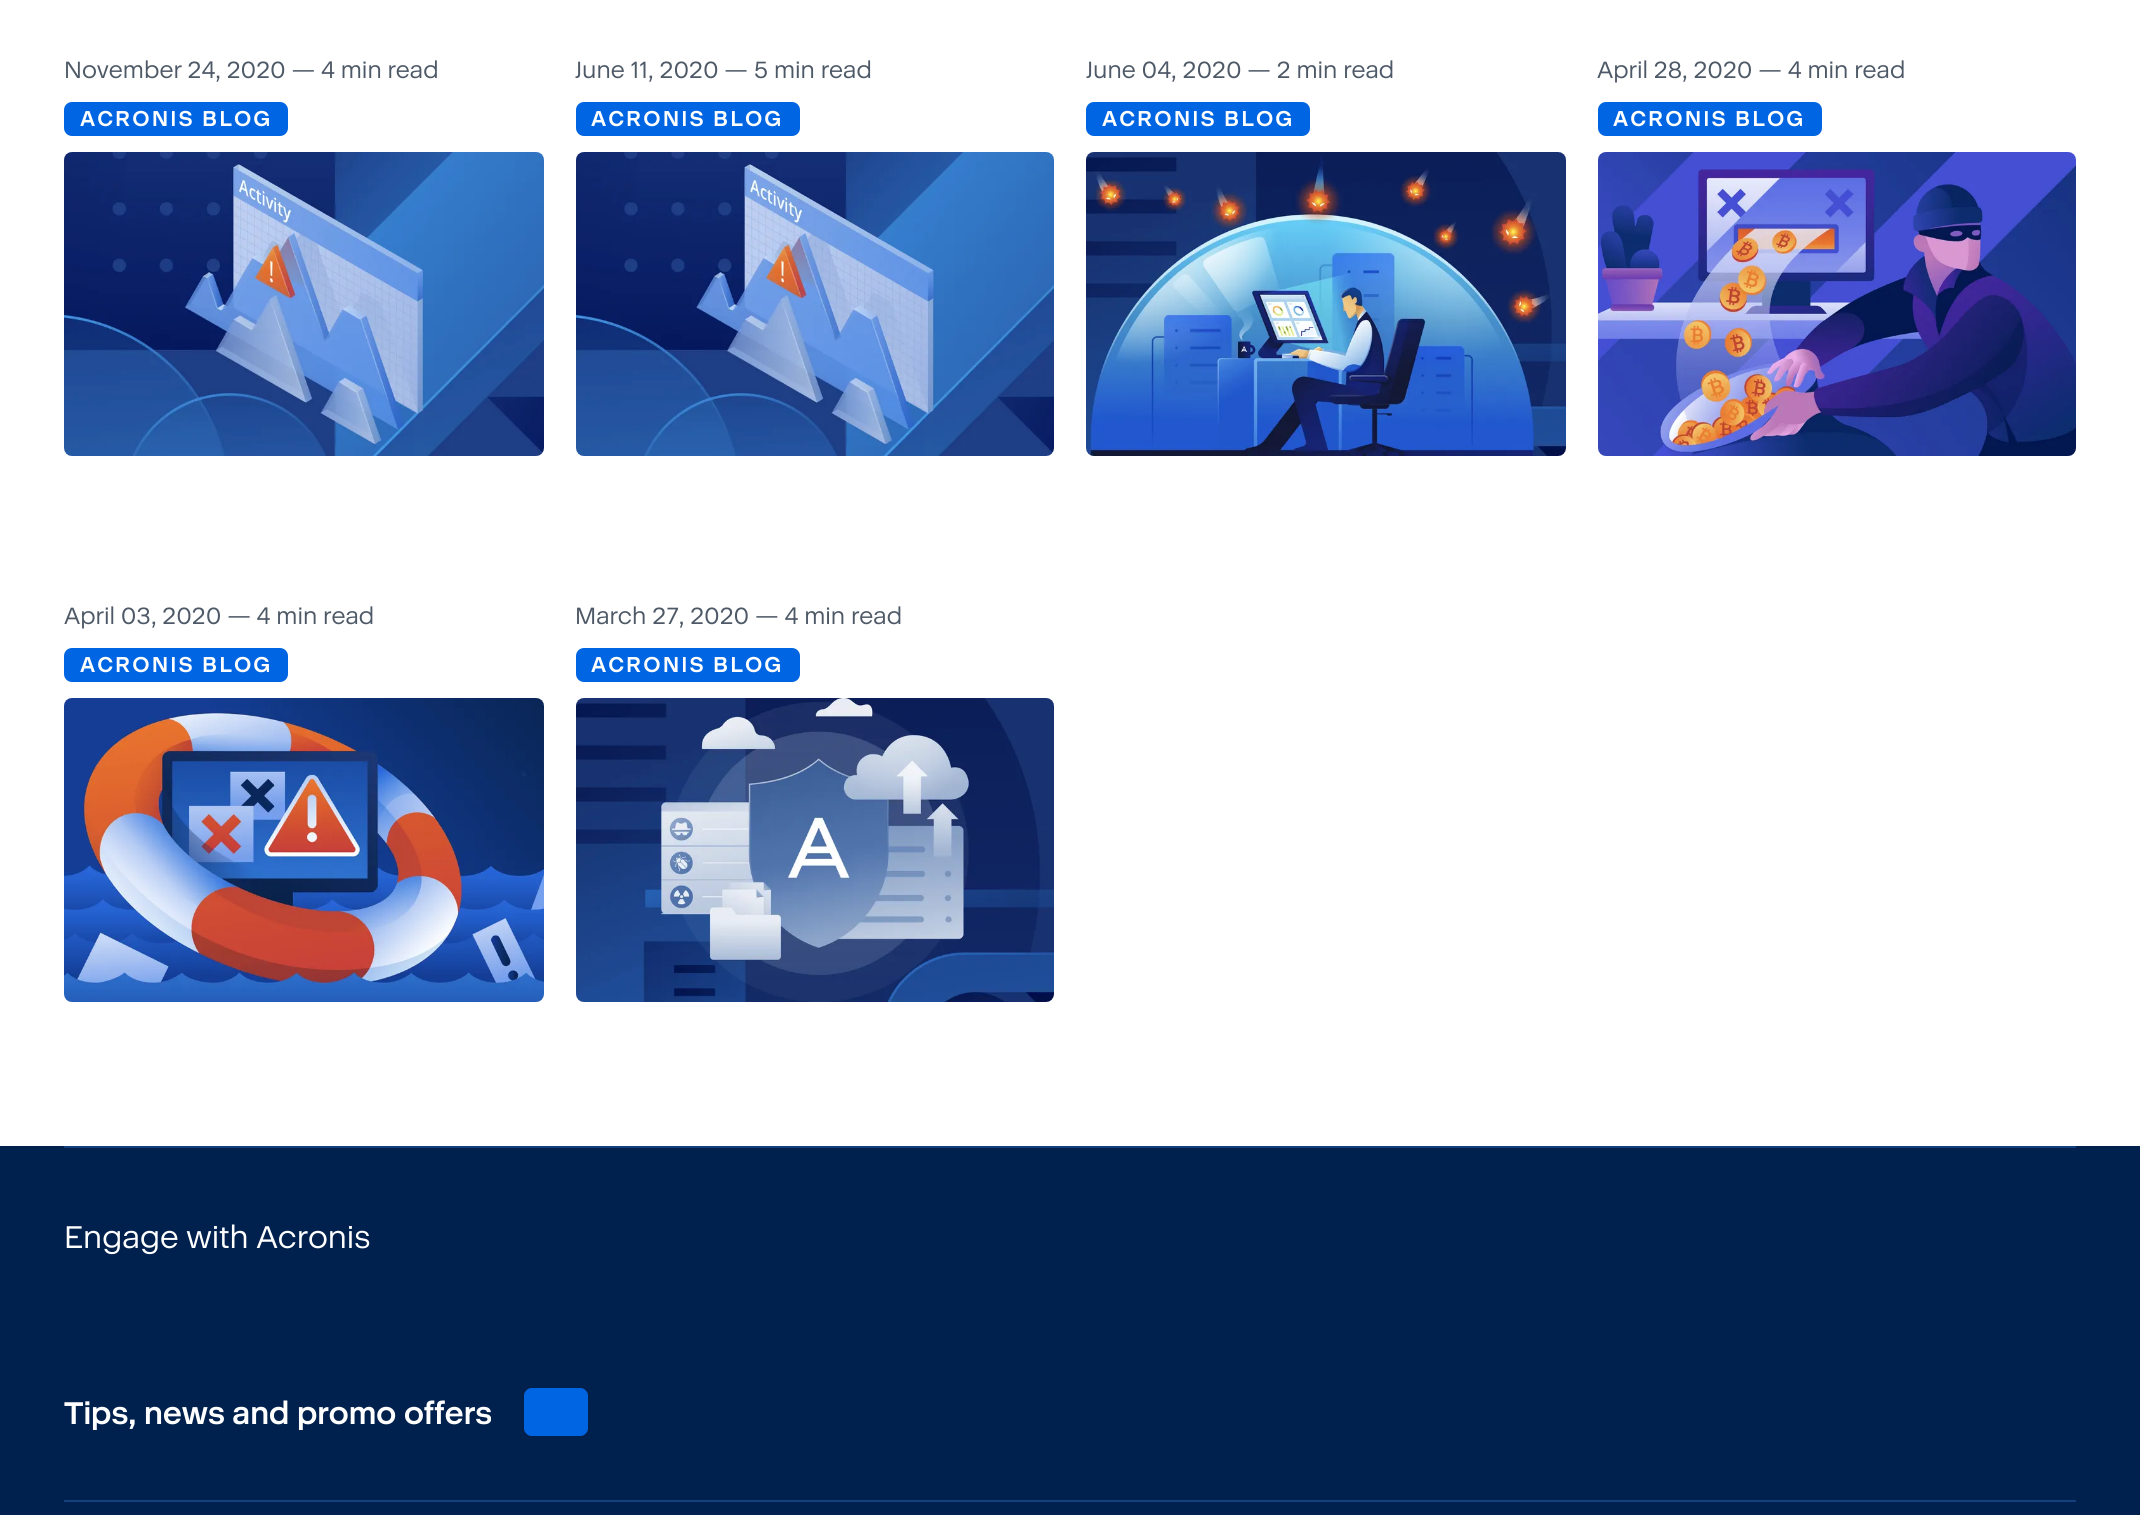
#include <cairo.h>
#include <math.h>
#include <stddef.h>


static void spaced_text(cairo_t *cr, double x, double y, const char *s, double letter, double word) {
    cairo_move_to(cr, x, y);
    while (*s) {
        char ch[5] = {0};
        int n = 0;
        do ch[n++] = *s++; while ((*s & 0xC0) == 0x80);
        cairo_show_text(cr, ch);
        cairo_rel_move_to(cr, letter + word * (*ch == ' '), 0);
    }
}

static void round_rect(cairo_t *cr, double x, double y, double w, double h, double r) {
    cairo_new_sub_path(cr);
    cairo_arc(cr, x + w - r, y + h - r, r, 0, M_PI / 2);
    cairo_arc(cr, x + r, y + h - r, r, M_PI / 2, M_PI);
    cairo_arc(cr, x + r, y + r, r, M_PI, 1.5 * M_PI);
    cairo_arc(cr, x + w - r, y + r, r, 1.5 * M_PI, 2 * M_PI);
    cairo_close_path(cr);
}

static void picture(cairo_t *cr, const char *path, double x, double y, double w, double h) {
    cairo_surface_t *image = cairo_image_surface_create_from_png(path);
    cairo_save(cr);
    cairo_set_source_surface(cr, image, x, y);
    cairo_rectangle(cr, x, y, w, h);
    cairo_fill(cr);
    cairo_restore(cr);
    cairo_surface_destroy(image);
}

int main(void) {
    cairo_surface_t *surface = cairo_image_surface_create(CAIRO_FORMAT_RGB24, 2140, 1515);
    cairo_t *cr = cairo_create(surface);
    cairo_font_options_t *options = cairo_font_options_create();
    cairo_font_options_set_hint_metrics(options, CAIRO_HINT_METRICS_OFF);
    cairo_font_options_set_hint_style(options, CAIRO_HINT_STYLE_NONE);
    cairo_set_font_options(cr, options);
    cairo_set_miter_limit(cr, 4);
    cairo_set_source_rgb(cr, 1, 1, 1);
    cairo_paint(cr);
    cairo_select_font_face(cr, "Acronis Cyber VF", CAIRO_FONT_SLANT_NORMAL, CAIRO_FONT_WEIGHT_NORMAL);
    cairo_set_font_size(cr, 24);
    cairo_set_source_rgb(cr, 0.306, 0.349, 0.404);
    cairo_move_to(cr, 64, 78);
    cairo_show_text(cr, "November 24, 2020 — 4 min read");
    cairo_set_source_rgb(cr, 0, 0.396, 0.89);
    round_rect(cr, 64, 102, 224, 34, 8);
    cairo_fill(cr);
    cairo_select_font_face(cr, "Acronis Cyber VF", CAIRO_FONT_SLANT_NORMAL, CAIRO_FONT_WEIGHT_BOLD);
    cairo_set_font_size(cr, 22);
    cairo_set_source_rgb(cr, 1, 1, 1);
    spaced_text(cr, 80, 126, "ACRONIS BLOG", 2, 0);
    picture(cr, "img1.png", 64, 152, 480, 304);
    cairo_select_font_face(cr, "Acronis Cyber VF", CAIRO_FONT_SLANT_NORMAL, CAIRO_FONT_WEIGHT_NORMAL);
    cairo_set_font_size(cr, 24);
    cairo_set_source_rgb(cr, 0.306, 0.349, 0.404);
    cairo_move_to(cr, 575, 78);
    cairo_show_text(cr, "June 11, 2020 — 5 min read");
    cairo_set_source_rgb(cr, 0, 0.396, 0.89);
    round_rect(cr, 576, 102, 224, 34, 8);
    cairo_fill(cr);
    cairo_select_font_face(cr, "Acronis Cyber VF", CAIRO_FONT_SLANT_NORMAL, CAIRO_FONT_WEIGHT_BOLD);
    cairo_set_font_size(cr, 22);
    cairo_set_source_rgb(cr, 1, 1, 1);
    spaced_text(cr, 591, 126, "ACRONIS BLOG", 2, 0);
    picture(cr, "img2.png", 576, 152, 478, 304);
    cairo_select_font_face(cr, "Acronis Cyber VF", CAIRO_FONT_SLANT_NORMAL, CAIRO_FONT_WEIGHT_NORMAL);
    cairo_set_font_size(cr, 24);
    cairo_set_source_rgb(cr, 0.306, 0.349, 0.404);
    cairo_move_to(cr, 1086, 78);
    cairo_show_text(cr, "June 04, 2020 — 2 min read");
    cairo_set_source_rgb(cr, 0, 0.396, 0.89);
    round_rect(cr, 1086, 102, 224, 34, 8);
    cairo_fill(cr);
    cairo_select_font_face(cr, "Acronis Cyber VF", CAIRO_FONT_SLANT_NORMAL, CAIRO_FONT_WEIGHT_BOLD);
    cairo_set_font_size(cr, 22);
    cairo_set_source_rgb(cr, 1, 1, 1);
    spaced_text(cr, 1102, 126, "ACRONIS BLOG", 2, 0);
    picture(cr, "img3.png", 1086, 152, 480, 304);
    cairo_select_font_face(cr, "Acronis Cyber VF", CAIRO_FONT_SLANT_NORMAL, CAIRO_FONT_WEIGHT_NORMAL);
    cairo_set_font_size(cr, 24);
    cairo_set_source_rgb(cr, 0.306, 0.349, 0.404);
    cairo_move_to(cr, 1597, 78);
    cairo_show_text(cr, "April 28, 2020 — 4 min read");
    cairo_set_source_rgb(cr, 0, 0.396, 0.89);
    round_rect(cr, 1598, 102, 224, 34, 8);
    cairo_fill(cr);
    cairo_select_font_face(cr, "Acronis Cyber VF", CAIRO_FONT_SLANT_NORMAL, CAIRO_FONT_WEIGHT_BOLD);
    cairo_set_font_size(cr, 22);
    cairo_set_source_rgb(cr, 1, 1, 1);
    spaced_text(cr, 1613, 126, "ACRONIS BLOG", 2, 0);
    picture(cr, "img4.png", 1598, 152, 478, 304);
    cairo_select_font_face(cr, "Acronis Cyber VF", CAIRO_FONT_SLANT_NORMAL, CAIRO_FONT_WEIGHT_NORMAL);
    cairo_set_font_size(cr, 24);
    cairo_set_source_rgb(cr, 0.306, 0.349, 0.404);
    cairo_move_to(cr, 64, 624);
    cairo_show_text(cr, "April 03, 2020 — 4 min read");
    cairo_set_source_rgb(cr, 0, 0.396, 0.89);
    round_rect(cr, 64, 648, 224, 34, 8);
    cairo_fill(cr);
    cairo_select_font_face(cr, "Acronis Cyber VF", CAIRO_FONT_SLANT_NORMAL, CAIRO_FONT_WEIGHT_BOLD);
    cairo_set_font_size(cr, 22);
    cairo_set_source_rgb(cr, 1, 1, 1);
    spaced_text(cr, 80, 672, "ACRONIS BLOG", 2, 0);
    picture(cr, "img5.png", 64, 698, 480, 304);
    cairo_select_font_face(cr, "Acronis Cyber VF", CAIRO_FONT_SLANT_NORMAL, CAIRO_FONT_WEIGHT_NORMAL);
    cairo_set_font_size(cr, 24);
    cairo_set_source_rgb(cr, 0.306, 0.349, 0.404);
    cairo_move_to(cr, 575, 624);
    cairo_show_text(cr, "March 27, 2020 — 4 min read");
    cairo_set_source_rgb(cr, 0, 0.396, 0.89);
    round_rect(cr, 576, 648, 224, 34, 8);
    cairo_fill(cr);
    cairo_select_font_face(cr, "Acronis Cyber VF", CAIRO_FONT_SLANT_NORMAL, CAIRO_FONT_WEIGHT_BOLD);
    cairo_set_font_size(cr, 22);
    cairo_set_source_rgb(cr, 1, 1, 1);
    spaced_text(cr, 591, 672, "ACRONIS BLOG", 2, 0);
    picture(cr, "img6.png", 576, 698, 478, 304);
    cairo_set_source_rgb(cr, 0, 0.125, 0.302);
    cairo_rectangle(cr, 0, 1146, 2140, 369);
    cairo_fill(cr);
    cairo_set_source_rgb(cr, 0.075, 0.251, 0.486);
    cairo_rectangle(cr, 64, 1146, 2012, 2);
    cairo_fill(cr);
    cairo_select_font_face(cr, "Acronis Cyber VF", CAIRO_FONT_SLANT_NORMAL, CAIRO_FONT_WEIGHT_NORMAL);
    cairo_set_font_size(cr, 32);
    cairo_set_source_rgb(cr, 1, 1, 1);
    cairo_move_to(cr, 64, 1248);
    cairo_show_text(cr, "Engage with Acronis");
    cairo_select_font_face(cr, "Acronis Cyber VF", CAIRO_FONT_SLANT_NORMAL, CAIRO_FONT_WEIGHT_BOLD);
    cairo_move_to(cr, 64, 1424);
    cairo_show_text(cr, "Tips, news and promo offers");
    cairo_set_source_rgb(cr, 0, 0.396, 0.89);
    round_rect(cr, 524, 1388, 64, 48, 8);
    cairo_fill(cr);
    cairo_set_source_rgb(cr, 0.075, 0.251, 0.486);
    cairo_rectangle(cr, 64, 1500, 2012, 2);
    cairo_fill(cr);
    cairo_surface_write_to_png(surface, "page.png");
    cairo_font_options_destroy(options);
    cairo_destroy(cr);
    cairo_surface_destroy(surface);
    return 0;
}
